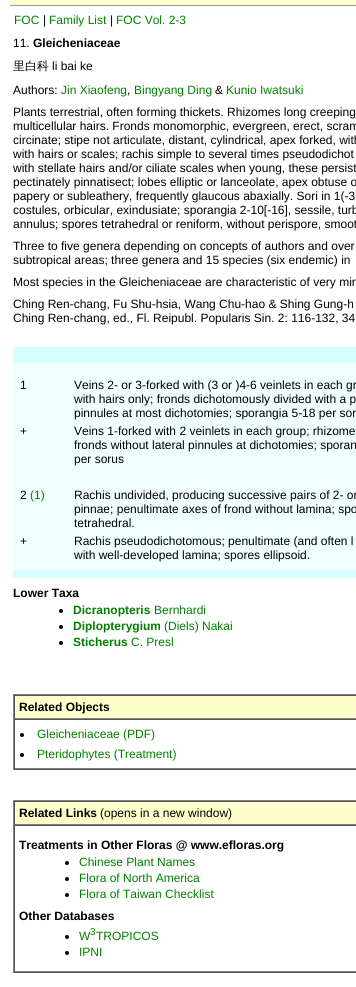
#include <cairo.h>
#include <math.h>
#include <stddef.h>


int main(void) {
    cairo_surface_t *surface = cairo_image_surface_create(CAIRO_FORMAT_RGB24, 356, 987);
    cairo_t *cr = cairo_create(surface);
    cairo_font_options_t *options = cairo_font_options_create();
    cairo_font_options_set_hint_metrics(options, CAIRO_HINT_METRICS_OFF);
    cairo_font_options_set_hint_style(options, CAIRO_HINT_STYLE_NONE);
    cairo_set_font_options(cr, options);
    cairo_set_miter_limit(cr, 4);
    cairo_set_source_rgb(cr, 1, 1, 1);
    cairo_paint(cr);
    cairo_set_source_rgb(cr, 1, 1, 0.8);
    cairo_rectangle(cr, 10, 0, 346, 5);
    cairo_fill(cr);
    cairo_set_source_rgb(cr, 0.6, 0.6, 0.6);
    cairo_rectangle(cr, 10, 5, 346, 1);
    cairo_fill(cr);
    cairo_select_font_face(cr, "Liberation Sans", CAIRO_FONT_SLANT_NORMAL, CAIRO_FONT_WEIGHT_NORMAL);
    cairo_set_font_size(cr, 12);
    cairo_set_source_rgb(cr, 0, 0.502, 0);
    cairo_move_to(cr, 14, 24);
    cairo_show_text(cr, "FOC");
    cairo_set_source_rgb(cr, 0, 0, 0);
    cairo_move_to(cr, 43, 24);
    cairo_show_text(cr, "|");
    cairo_set_source_rgb(cr, 0, 0.502, 0);
    cairo_move_to(cr, 49, 24);
    cairo_show_text(cr, "Family List");
    cairo_set_source_rgb(cr, 0, 0, 0);
    cairo_move_to(cr, 110, 24);
    cairo_show_text(cr, "|");
    cairo_set_source_rgb(cr, 0, 0.502, 0);
    cairo_move_to(cr, 116, 24);
    cairo_show_text(cr, "FOC Vol. 2-3");
    cairo_set_source_rgb(cr, 0, 0, 0);
    cairo_move_to(cr, 13, 47);
    cairo_show_text(cr, "11.");
    cairo_select_font_face(cr, "Liberation Sans", CAIRO_FONT_SLANT_NORMAL, CAIRO_FONT_WEIGHT_BOLD);
    cairo_move_to(cr, 33, 47);
    cairo_show_text(cr, "Gleicheniaceae");
    cairo_select_font_face(cr, "WenQuanYi Zen Hei Medium", CAIRO_FONT_SLANT_NORMAL, CAIRO_FONT_WEIGHT_NORMAL);
    cairo_move_to(cr, 13, 70);
    cairo_show_text(cr, "里白科");
    cairo_select_font_face(cr, "Liberation Sans", CAIRO_FONT_SLANT_NORMAL, CAIRO_FONT_WEIGHT_NORMAL);
    cairo_move_to(cr, 52, 70);
    cairo_show_text(cr, "li bai ke");
    cairo_move_to(cr, 13, 94);
    cairo_show_text(cr, "Authors:");
    cairo_set_source_rgb(cr, 0, 0.502, 0);
    cairo_move_to(cr, 61, 94);
    cairo_show_text(cr, "Jin Xiaofeng");
    cairo_set_source_rgb(cr, 0, 0, 0);
    cairo_move_to(cr, 127, 94);
    cairo_show_text(cr, ",");
    cairo_set_source_rgb(cr, 0, 0.502, 0);
    cairo_move_to(cr, 134, 94);
    cairo_show_text(cr, "Bingyang Ding");
    cairo_set_source_rgb(cr, 0, 0, 0);
    cairo_move_to(cr, 215, 94);
    cairo_show_text(cr, "&");
    cairo_set_source_rgb(cr, 0, 0.502, 0);
    cairo_move_to(cr, 226, 94);
    cairo_show_text(cr, "Kunio Iwatsuki");
    cairo_set_source_rgb(cr, 0, 0, 0);
    cairo_move_to(cr, 13, 116);
    cairo_show_text(cr, "Plants terrestrial, often forming thickets. Rhizomes long creeping");
    cairo_move_to(cr, 13, 130);
    cairo_show_text(cr, "multicellular hairs. Fronds monomorphic, evergreen, erect, scram");
    cairo_move_to(cr, 13, 144);
    cairo_show_text(cr, "circinate; stipe not articulate, distant, cylindrical, apex forked, with");
    cairo_move_to(cr, 13, 158);
    cairo_show_text(cr, "with hairs or scales; rachis simple to several times pseudodichot");
    cairo_move_to(cr, 13, 172);
    cairo_show_text(cr, "with stellate hairs and/or ciliate scales when young, these persist");
    cairo_move_to(cr, 13, 186);
    cairo_show_text(cr, "pectinately pinnatisect; lobes elliptic or lanceolate, apex obtuse o");
    cairo_move_to(cr, 13, 200);
    cairo_show_text(cr, "papery or subleathery, frequently glaucous abaxially. Sori in 1(-3");
    cairo_move_to(cr, 13, 214);
    cairo_show_text(cr, "costules, orbicular, exindusiate; sporangia 2-10[-16], sessile, turb");
    cairo_move_to(cr, 13, 228);
    cairo_show_text(cr, "annulus; spores tetrahedral or reniform, without perispore, smoot");
    cairo_move_to(cr, 13, 250);
    cairo_show_text(cr, "Three to five genera depending on concepts of authors and over");
    cairo_move_to(cr, 13, 264);
    cairo_show_text(cr, "subtropical areas; three genera and 15 species (six endemic) in");
    cairo_move_to(cr, 13, 286);
    cairo_show_text(cr, "Most species in the Gleicheniaceae are characteristic of very min");
    cairo_move_to(cr, 13, 308);
    cairo_show_text(cr, "Ching Ren-chang, Fu Shu-hsia, Wang Chu-hao & Shing Gung-h");
    cairo_move_to(cr, 13, 322);
    cairo_show_text(cr, "Ching Ren-chang, ed., Fl. Reipubl. Popularis Sin. 2: 116-132, 34");
    cairo_set_source_rgb(cr, 0.835, 1, 1);
    cairo_rectangle(cr, 13, 347, 343, 16);
    cairo_fill(cr);
    cairo_set_source_rgb(cr, 0.945, 1, 1);
    cairo_rectangle(cr, 13, 363, 343, 207);
    cairo_fill(cr);
    cairo_set_source_rgb(cr, 0, 0, 0);
    cairo_move_to(cr, 20, 389);
    cairo_show_text(cr, "1");
    cairo_move_to(cr, 74, 389);
    cairo_show_text(cr, "Veins 2- or 3-forked with (3 or )4-6 veinlets in each gr");
    cairo_move_to(cr, 74, 403);
    cairo_show_text(cr, "with hairs only; fronds dichotomously divided with a p");
    cairo_move_to(cr, 74, 417);
    cairo_show_text(cr, "pinnules at most dichotomies; sporangia 5-18 per sor");
    cairo_move_to(cr, 20, 435);
    cairo_show_text(cr, "+");
    cairo_move_to(cr, 74, 435);
    cairo_show_text(cr, "Veins 1-forked with 2 veinlets in each group; rhizome");
    cairo_move_to(cr, 74, 449);
    cairo_show_text(cr, "fronds without lateral pinnules at dichotomies; sporan");
    cairo_move_to(cr, 74, 463);
    cairo_show_text(cr, "per sorus");
    cairo_move_to(cr, 20, 499);
    cairo_show_text(cr, "2");
    cairo_set_source_rgb(cr, 0, 0.502, 0);
    cairo_move_to(cr, 30, 499);
    cairo_show_text(cr, "(1)");
    cairo_set_source_rgb(cr, 0, 0, 0);
    cairo_move_to(cr, 74, 499);
    cairo_show_text(cr, "Rachis undivided, producing successive pairs of 2- or");
    cairo_move_to(cr, 74, 513);
    cairo_show_text(cr, "pinnae; penultimate axes of frond without lamina; spo");
    cairo_move_to(cr, 74, 527);
    cairo_show_text(cr, "tetrahedral.");
    cairo_move_to(cr, 20, 545);
    cairo_show_text(cr, "+");
    cairo_move_to(cr, 74, 545);
    cairo_show_text(cr, "Rachis pseudodichotomous; penultimate (and often l");
    cairo_move_to(cr, 74, 559);
    cairo_show_text(cr, "with well-developed lamina; spores ellipsoid.");
    cairo_set_source_rgb(cr, 0.835, 1, 1);
    cairo_rectangle(cr, 13, 570, 343, 8);
    cairo_fill(cr);
    cairo_select_font_face(cr, "Liberation Sans", CAIRO_FONT_SLANT_NORMAL, CAIRO_FONT_WEIGHT_BOLD);
    cairo_set_source_rgb(cr, 0, 0, 0);
    cairo_move_to(cr, 13, 597);
    cairo_show_text(cr, "Lower Taxa");
    cairo_new_path(cr);
    cairo_arc(cr, 61, 611, 2, 0, 2 * M_PI);
    cairo_fill(cr);
    cairo_set_source_rgb(cr, 0, 0.502, 0);
    cairo_move_to(cr, 73, 614);
    cairo_show_text(cr, "Dicranopteris");
    cairo_select_font_face(cr, "Liberation Sans", CAIRO_FONT_SLANT_NORMAL, CAIRO_FONT_WEIGHT_NORMAL);
    cairo_move_to(cr, 154, 614);
    cairo_show_text(cr, "Bernhardi");
    cairo_set_source_rgb(cr, 0, 0, 0);
    cairo_new_path(cr);
    cairo_arc(cr, 61, 627, 2, 0, 2 * M_PI);
    cairo_fill(cr);
    cairo_select_font_face(cr, "Liberation Sans", CAIRO_FONT_SLANT_NORMAL, CAIRO_FONT_WEIGHT_BOLD);
    cairo_set_source_rgb(cr, 0, 0.502, 0);
    cairo_move_to(cr, 73, 630);
    cairo_show_text(cr, "Diplopterygium");
    cairo_select_font_face(cr, "Liberation Sans", CAIRO_FONT_SLANT_NORMAL, CAIRO_FONT_WEIGHT_NORMAL);
    cairo_move_to(cr, 164, 630);
    cairo_show_text(cr, "(Diels) Nakai");
    cairo_set_source_rgb(cr, 0, 0, 0);
    cairo_new_path(cr);
    cairo_arc(cr, 61, 643, 2, 0, 2 * M_PI);
    cairo_fill(cr);
    cairo_select_font_face(cr, "Liberation Sans", CAIRO_FONT_SLANT_NORMAL, CAIRO_FONT_WEIGHT_BOLD);
    cairo_set_source_rgb(cr, 0, 0.502, 0);
    cairo_move_to(cr, 73, 646);
    cairo_show_text(cr, "Sticherus");
    cairo_select_font_face(cr, "Liberation Sans", CAIRO_FONT_SLANT_NORMAL, CAIRO_FONT_WEIGHT_NORMAL);
    cairo_move_to(cr, 131, 646);
    cairo_show_text(cr, "C. Presl");
    cairo_set_source_rgb(cr, 0.502, 0.502, 0.502);
    cairo_rectangle(cr, 13, 694, 343, 1);
    cairo_fill(cr);
    cairo_set_source_rgb(cr, 0.333, 0.333, 0.333);
    cairo_rectangle(cr, 13, 769, 343, 1);
    cairo_fill(cr);
    cairo_set_source_rgb(cr, 0.502, 0.502, 0.502);
    cairo_rectangle(cr, 13, 694, 1, 76);
    cairo_fill(cr);
    cairo_set_source_rgb(cr, 1, 1, 0.8);
    cairo_rectangle(cr, 15, 696, 341, 22);
    cairo_fill(cr);
    cairo_set_source_rgb(cr, 0.333, 0.333, 0.333);
    cairo_rectangle(cr, 14, 695, 342, 1);
    cairo_fill(cr);
    cairo_set_source_rgb(cr, 0.502, 0.502, 0.502);
    cairo_rectangle(cr, 14, 718, 342, 1);
    cairo_fill(cr);
    cairo_set_source_rgb(cr, 0.333, 0.333, 0.333);
    cairo_rectangle(cr, 14, 695, 1, 24);
    cairo_fill(cr);
    cairo_select_font_face(cr, "Liberation Sans", CAIRO_FONT_SLANT_NORMAL, CAIRO_FONT_WEIGHT_BOLD);
    cairo_set_source_rgb(cr, 0, 0, 0);
    cairo_move_to(cr, 19, 711);
    cairo_show_text(cr, "Related Objects");
    cairo_set_source_rgb(cr, 0.333, 0.333, 0.333);
    cairo_rectangle(cr, 14, 719, 342, 1);
    cairo_fill(cr);
    cairo_set_source_rgb(cr, 0.502, 0.502, 0.502);
    cairo_rectangle(cr, 14, 768, 342, 1);
    cairo_fill(cr);
    cairo_set_source_rgb(cr, 0.333, 0.333, 0.333);
    cairo_rectangle(cr, 14, 719, 1, 50);
    cairo_fill(cr);
    cairo_set_source_rgb(cr, 0, 0, 0);
    cairo_arc(cr, 22, 735, 2, 0, 2 * M_PI);
    cairo_fill(cr);
    cairo_select_font_face(cr, "Liberation Sans", CAIRO_FONT_SLANT_NORMAL, CAIRO_FONT_WEIGHT_NORMAL);
    cairo_set_source_rgb(cr, 0, 0.502, 0);
    cairo_move_to(cr, 37, 738);
    cairo_show_text(cr, "Gleicheniaceae (PDF)");
    cairo_set_source_rgb(cr, 0, 0, 0);
    cairo_new_path(cr);
    cairo_arc(cr, 22, 755, 2, 0, 2 * M_PI);
    cairo_fill(cr);
    cairo_set_source_rgb(cr, 0, 0.502, 0);
    cairo_move_to(cr, 37, 758);
    cairo_show_text(cr, "Pteridophytes (Treatment)");
    cairo_set_source_rgb(cr, 0.502, 0.502, 0.502);
    cairo_rectangle(cr, 13, 800, 343, 1);
    cairo_fill(cr);
    cairo_set_source_rgb(cr, 0.333, 0.333, 0.333);
    cairo_rectangle(cr, 13, 972, 343, 1);
    cairo_fill(cr);
    cairo_set_source_rgb(cr, 0.502, 0.502, 0.502);
    cairo_rectangle(cr, 13, 800, 1, 173);
    cairo_fill(cr);
    cairo_set_source_rgb(cr, 1, 1, 0.8);
    cairo_rectangle(cr, 15, 802, 341, 22);
    cairo_fill(cr);
    cairo_set_source_rgb(cr, 0.333, 0.333, 0.333);
    cairo_rectangle(cr, 14, 801, 342, 1);
    cairo_fill(cr);
    cairo_set_source_rgb(cr, 0.502, 0.502, 0.502);
    cairo_rectangle(cr, 14, 824, 342, 1);
    cairo_fill(cr);
    cairo_set_source_rgb(cr, 0.333, 0.333, 0.333);
    cairo_rectangle(cr, 14, 801, 1, 24);
    cairo_fill(cr);
    cairo_select_font_face(cr, "Liberation Sans", CAIRO_FONT_SLANT_NORMAL, CAIRO_FONT_WEIGHT_BOLD);
    cairo_set_source_rgb(cr, 0, 0, 0);
    cairo_move_to(cr, 19, 817);
    cairo_show_text(cr, "Related Links");
    cairo_select_font_face(cr, "Liberation Sans", CAIRO_FONT_SLANT_NORMAL, CAIRO_FONT_WEIGHT_NORMAL);
    cairo_move_to(cr, 100, 817);
    cairo_show_text(cr, "(opens in a new window)");
    cairo_set_source_rgb(cr, 0.333, 0.333, 0.333);
    cairo_rectangle(cr, 14, 825, 342, 1);
    cairo_fill(cr);
    cairo_set_source_rgb(cr, 0.502, 0.502, 0.502);
    cairo_rectangle(cr, 14, 971, 342, 1);
    cairo_fill(cr);
    cairo_set_source_rgb(cr, 0.333, 0.333, 0.333);
    cairo_rectangle(cr, 14, 825, 1, 147);
    cairo_fill(cr);
    cairo_select_font_face(cr, "Liberation Sans", CAIRO_FONT_SLANT_NORMAL, CAIRO_FONT_WEIGHT_BOLD);
    cairo_set_source_rgb(cr, 0, 0, 0);
    cairo_move_to(cr, 19, 849);
    cairo_show_text(cr, "Treatments in Other Floras @ www.efloras.org");
    cairo_new_path(cr);
    cairo_arc(cr, 67, 863, 2, 0, 2 * M_PI);
    cairo_fill(cr);
    cairo_select_font_face(cr, "Liberation Sans", CAIRO_FONT_SLANT_NORMAL, CAIRO_FONT_WEIGHT_NORMAL);
    cairo_set_source_rgb(cr, 0, 0.502, 0);
    cairo_move_to(cr, 79, 866);
    cairo_show_text(cr, "Chinese Plant Names");
    cairo_set_source_rgb(cr, 0, 0, 0);
    cairo_new_path(cr);
    cairo_arc(cr, 67, 879, 2, 0, 2 * M_PI);
    cairo_fill(cr);
    cairo_set_source_rgb(cr, 0, 0.502, 0);
    cairo_move_to(cr, 79, 882);
    cairo_show_text(cr, "Flora of North America");
    cairo_set_source_rgb(cr, 0, 0, 0);
    cairo_new_path(cr);
    cairo_arc(cr, 67, 895, 2, 0, 2 * M_PI);
    cairo_fill(cr);
    cairo_set_source_rgb(cr, 0, 0.502, 0);
    cairo_move_to(cr, 79, 898);
    cairo_show_text(cr, "Flora of Taiwan Checklist");
    cairo_select_font_face(cr, "Liberation Sans", CAIRO_FONT_SLANT_NORMAL, CAIRO_FONT_WEIGHT_BOLD);
    cairo_set_source_rgb(cr, 0, 0, 0);
    cairo_move_to(cr, 19, 920);
    cairo_show_text(cr, "Other Databases");
    cairo_new_path(cr);
    cairo_arc(cr, 67, 937, 2, 0, 2 * M_PI);
    cairo_fill(cr);
    cairo_select_font_face(cr, "Liberation Sans", CAIRO_FONT_SLANT_NORMAL, CAIRO_FONT_WEIGHT_NORMAL);
    cairo_set_source_rgb(cr, 0, 0.502, 0);
    cairo_move_to(cr, 79, 940);
    cairo_show_text(cr, "W");
    cairo_set_font_size(cr, 10);
    cairo_move_to(cr, 90, 935);
    cairo_show_text(cr, "3");
    cairo_set_font_size(cr, 12);
    cairo_move_to(cr, 96, 940);
    cairo_show_text(cr, "TROPICOS");
    cairo_set_source_rgb(cr, 0, 0, 0);
    cairo_new_path(cr);
    cairo_arc(cr, 67, 953, 2, 0, 2 * M_PI);
    cairo_fill(cr);
    cairo_set_source_rgb(cr, 0, 0.502, 0);
    cairo_move_to(cr, 79, 956);
    cairo_show_text(cr, "IPNI");
    cairo_surface_write_to_png(surface, "page.png");
    cairo_font_options_destroy(options);
    cairo_destroy(cr);
    cairo_surface_destroy(surface);
    return 0;
}
